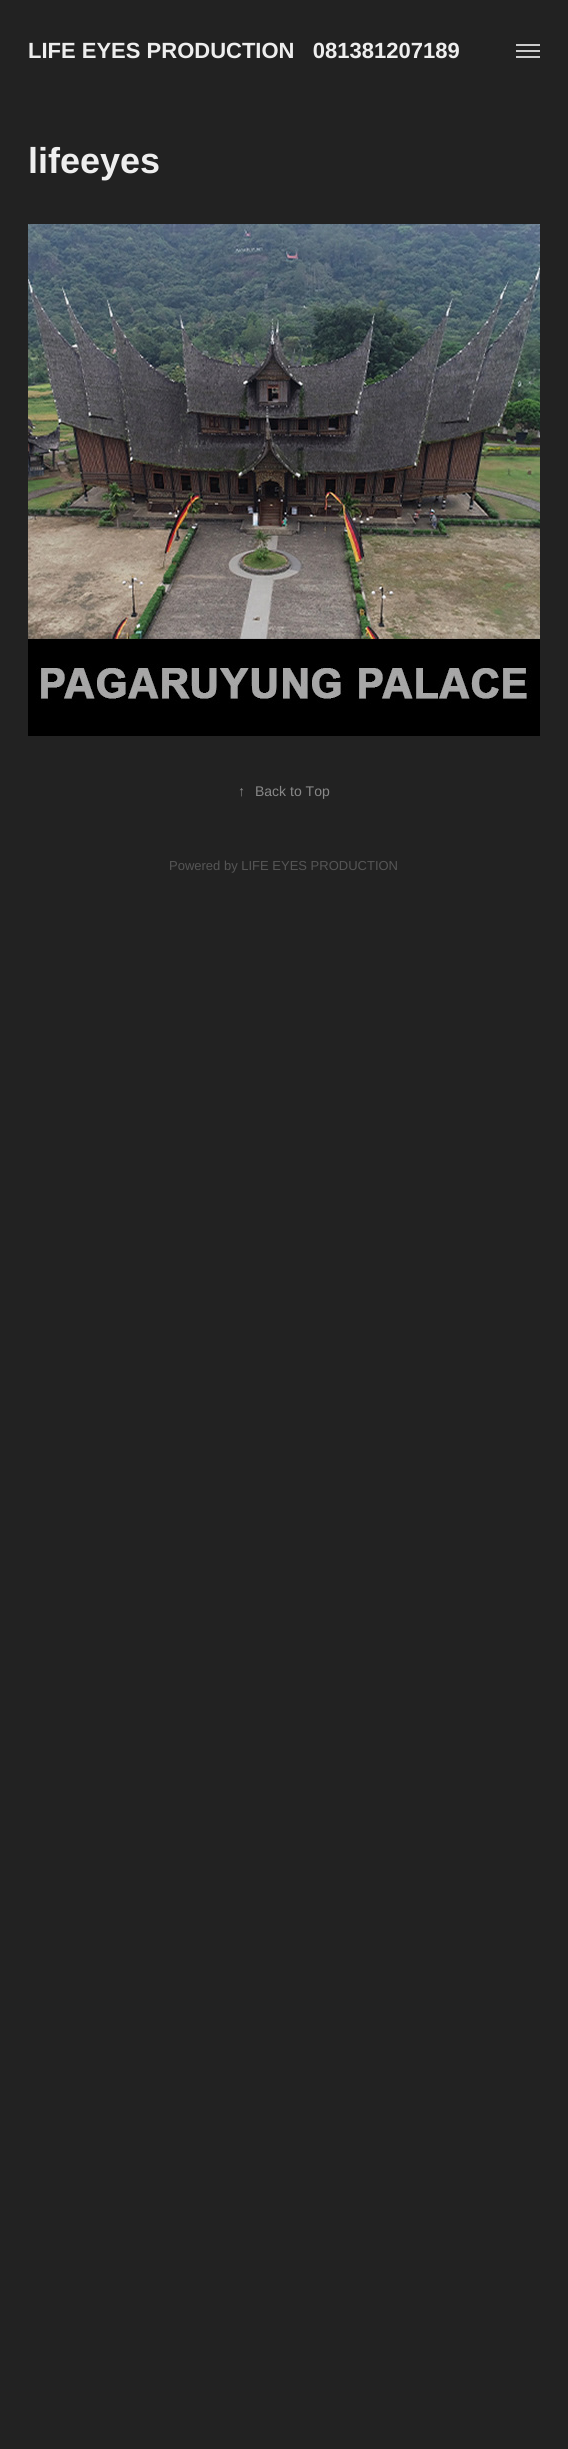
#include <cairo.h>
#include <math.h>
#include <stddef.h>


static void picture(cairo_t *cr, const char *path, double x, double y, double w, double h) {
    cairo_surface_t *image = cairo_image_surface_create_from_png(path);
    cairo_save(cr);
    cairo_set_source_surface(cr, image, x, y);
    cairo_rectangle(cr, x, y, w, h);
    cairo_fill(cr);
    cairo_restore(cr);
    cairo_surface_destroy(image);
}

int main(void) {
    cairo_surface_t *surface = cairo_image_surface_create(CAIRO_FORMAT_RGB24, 568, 2449);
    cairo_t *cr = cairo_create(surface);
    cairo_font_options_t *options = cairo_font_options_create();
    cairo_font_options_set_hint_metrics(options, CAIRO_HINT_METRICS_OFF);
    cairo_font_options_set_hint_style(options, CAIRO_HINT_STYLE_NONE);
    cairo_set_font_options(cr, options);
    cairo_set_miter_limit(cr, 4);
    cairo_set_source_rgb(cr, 0.133, 0.133, 0.133);
    cairo_paint(cr);
    cairo_select_font_face(cr, "Liberation Sans", CAIRO_FONT_SLANT_NORMAL, CAIRO_FONT_WEIGHT_BOLD);
    cairo_set_font_size(cr, 22);
    cairo_set_source_rgb(cr, 0.933, 0.933, 0.933);
    cairo_move_to(cr, 28, 58);
    cairo_show_text(cr, "LIFE EYES PRODUCTION   081381207189");
    cairo_set_source_rgb(cr, 0.8, 0.8, 0.8);
    cairo_rectangle(cr, 516, 44, 24, 2);
    cairo_fill(cr);
    cairo_rectangle(cr, 516, 50, 24, 2);
    cairo_fill(cr);
    cairo_rectangle(cr, 516, 56, 24, 2);
    cairo_fill(cr);
    cairo_set_font_size(cr, 36);
    cairo_set_source_rgb(cr, 0.933, 0.933, 0.933);
    cairo_move_to(cr, 28, 173);
    cairo_show_text(cr, "lifeeyes");
    picture(cr, "img1.png", 28, 224, 512, 512);
    cairo_select_font_face(cr, "Liberation Sans", CAIRO_FONT_SLANT_NORMAL, CAIRO_FONT_WEIGHT_NORMAL);
    cairo_set_font_size(cr, 14);
    cairo_set_source_rgb(cr, 0.533, 0.533, 0.533);
    cairo_move_to(cr, 238, 796);
    cairo_show_text(cr, "↑");
    cairo_move_to(cr, 255, 796);
    cairo_show_text(cr, "Back to Top");
    cairo_set_font_size(cr, 13);
    cairo_set_source_rgb(cr, 0.333, 0.333, 0.333);
    cairo_move_to(cr, 169, 870);
    cairo_show_text(cr, "Powered by LIFE EYES PRODUCTION");
    cairo_surface_write_to_png(surface, "page.png");
    cairo_font_options_destroy(options);
    cairo_destroy(cr);
    cairo_surface_destroy(surface);
    return 0;
}
